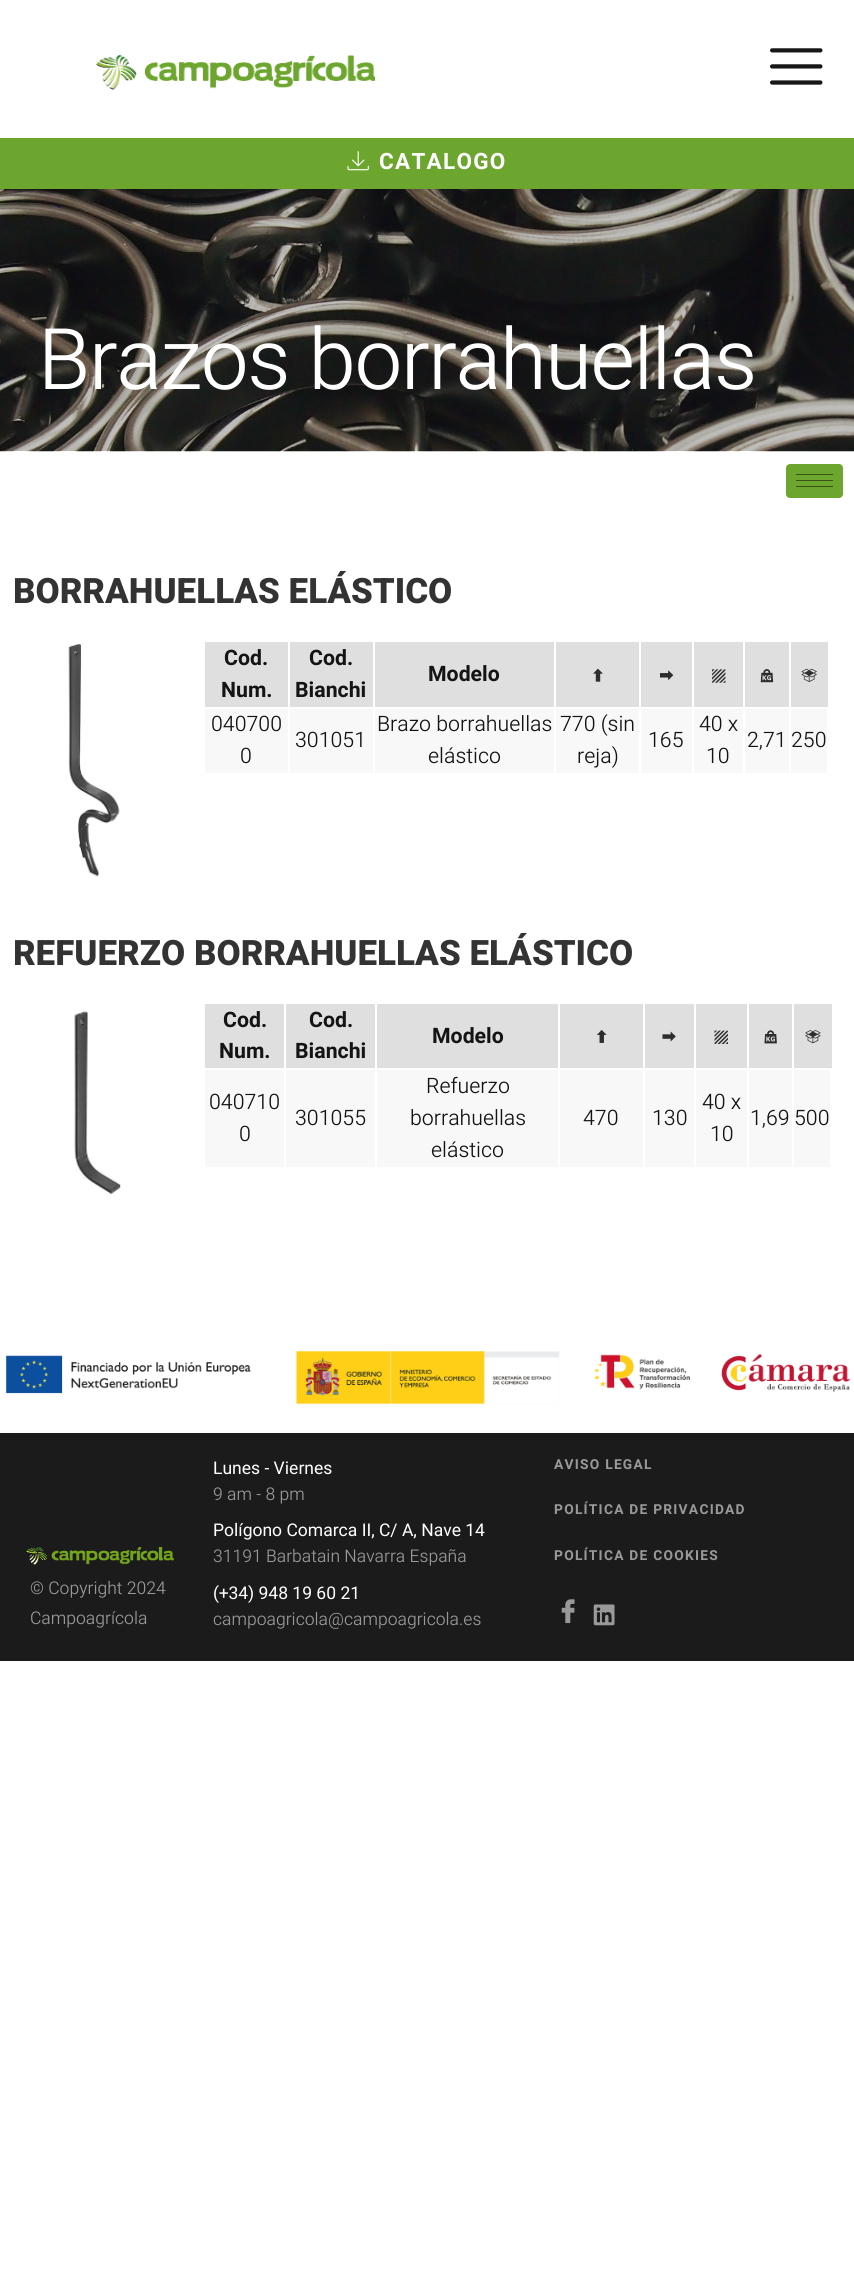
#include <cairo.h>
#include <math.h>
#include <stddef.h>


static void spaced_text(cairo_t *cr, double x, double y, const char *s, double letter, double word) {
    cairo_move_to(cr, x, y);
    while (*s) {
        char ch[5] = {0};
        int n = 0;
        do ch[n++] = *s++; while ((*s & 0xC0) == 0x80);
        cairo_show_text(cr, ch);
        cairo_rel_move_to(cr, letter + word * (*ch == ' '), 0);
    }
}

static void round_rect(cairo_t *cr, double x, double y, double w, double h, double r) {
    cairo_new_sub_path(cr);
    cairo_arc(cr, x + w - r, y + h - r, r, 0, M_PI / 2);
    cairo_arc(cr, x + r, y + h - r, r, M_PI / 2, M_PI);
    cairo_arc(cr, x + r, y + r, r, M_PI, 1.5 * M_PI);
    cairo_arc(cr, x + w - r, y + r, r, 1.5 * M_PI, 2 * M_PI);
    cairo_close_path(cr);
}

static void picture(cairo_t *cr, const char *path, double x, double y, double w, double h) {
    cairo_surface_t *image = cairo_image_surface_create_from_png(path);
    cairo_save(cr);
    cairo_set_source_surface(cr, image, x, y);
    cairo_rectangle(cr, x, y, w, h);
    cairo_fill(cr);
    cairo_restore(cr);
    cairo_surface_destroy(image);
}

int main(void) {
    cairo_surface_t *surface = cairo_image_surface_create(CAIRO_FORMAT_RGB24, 854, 2273);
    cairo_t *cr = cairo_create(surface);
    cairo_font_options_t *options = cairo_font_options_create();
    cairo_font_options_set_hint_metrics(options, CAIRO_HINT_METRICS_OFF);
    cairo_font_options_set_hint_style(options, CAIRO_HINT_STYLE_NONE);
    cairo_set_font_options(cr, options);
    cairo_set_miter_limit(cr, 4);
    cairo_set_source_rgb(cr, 1, 1, 1);
    cairo_paint(cr);
    picture(cr, "img1.png", 96, 55, 279, 35);
    picture(cr, "img2.png", 770, 48, 53, 37);
    cairo_set_source_rgb(cr, 0.427, 0.651, 0.18);
    cairo_rectangle(cr, 0, 138, 854, 51);
    cairo_fill(cr);
    picture(cr, "img3.png", 347, 151, 22, 20);
    cairo_select_font_face(cr, "Heebo", CAIRO_FONT_SLANT_NORMAL, CAIRO_FONT_WEIGHT_BOLD);
    cairo_set_font_size(cr, 22.5);
    cairo_set_source_rgb(cr, 1, 1, 1);
    spaced_text(cr, 379, 169, "CATALOGO", 1.25, 0);
    picture(cr, "img4.png", 0, 189, 854, 263);
    cairo_select_font_face(cr, "Heebo Light", CAIRO_FONT_SLANT_NORMAL, CAIRO_FONT_WEIGHT_NORMAL);
    cairo_set_font_size(cr, 85);
    spaced_text(cr, 38, 389, "Brazos borrahuellas", -1.4, 0);
    cairo_set_source_rgb(cr, 0.427, 0.651, 0.18);
    round_rect(cr, 786, 464, 57, 34, 4);
    cairo_fill(cr);
    cairo_set_source_rgb(cr, 0.216, 0.325, 0.09);
    cairo_rectangle(cr, 796, 474, 37, 1);
    cairo_fill(cr);
    cairo_rectangle(cr, 796, 480, 37, 1);
    cairo_fill(cr);
    cairo_rectangle(cr, 796, 486, 37, 1);
    cairo_fill(cr);
    cairo_select_font_face(cr, "Heebo ExtraBold", CAIRO_FONT_SLANT_NORMAL, CAIRO_FONT_WEIGHT_NORMAL);
    cairo_set_font_size(cr, 35);
    cairo_set_source_rgb(cr, 0.2, 0.2, 0.2);
    cairo_move_to(cr, 13, 603);
    cairo_show_text(cr, "BORRAHUELLAS ELÁSTICO");
    picture(cr, "img5.png", 68, 643, 52, 234);
    cairo_set_source_rgb(cr, 0.875, 0.875, 0.875);
    cairo_rectangle(cr, 205, 642, 83, 65);
    cairo_fill(cr);
    cairo_select_font_face(cr, "Heebo", CAIRO_FONT_SLANT_NORMAL, CAIRO_FONT_WEIGHT_BOLD);
    cairo_set_font_size(cr, 21.25);
    cairo_set_source_rgb(cr, 0.082, 0.082, 0.082);
    cairo_move_to(cr, 224, 665);
    cairo_show_text(cr, "Cod.");
    cairo_move_to(cr, 221, 697);
    cairo_show_text(cr, "Num.");
    cairo_set_source_rgb(cr, 0.875, 0.875, 0.875);
    cairo_rectangle(cr, 290, 642, 83, 65);
    cairo_fill(cr);
    cairo_set_source_rgb(cr, 0.082, 0.082, 0.082);
    cairo_move_to(cr, 309, 665);
    cairo_show_text(cr, "Cod.");
    cairo_move_to(cr, 295, 697);
    cairo_show_text(cr, "Bianchi");
    cairo_set_source_rgb(cr, 0.875, 0.875, 0.875);
    cairo_rectangle(cr, 375, 642, 179, 65);
    cairo_fill(cr);
    cairo_set_source_rgb(cr, 0.082, 0.082, 0.082);
    cairo_move_to(cr, 428, 681);
    cairo_show_text(cr, "Modelo");
    cairo_set_source_rgb(cr, 0.875, 0.875, 0.875);
    cairo_rectangle(cr, 556, 642, 83, 65);
    cairo_fill(cr);
    picture(cr, "img6.png", 593, 668, 10, 14);
    cairo_rectangle(cr, 641, 642, 51, 65);
    cairo_fill(cr);
    picture(cr, "img7.png", 659, 670, 15, 11);
    cairo_rectangle(cr, 694, 642, 49, 65);
    cairo_fill(cr);
    picture(cr, "img8.png", 712, 669, 14, 14);
    cairo_rectangle(cr, 745, 642, 44, 65);
    cairo_fill(cr);
    picture(cr, "img9.png", 760, 669, 14, 14);
    cairo_rectangle(cr, 791, 642, 37, 65);
    cairo_fill(cr);
    picture(cr, "img10.png", 801, 668, 16, 14);
    cairo_set_source_rgb(cr, 0.969, 0.969, 0.969);
    cairo_rectangle(cr, 205, 709, 83, 64);
    cairo_fill(cr);
    cairo_select_font_face(cr, "Heebo Light", CAIRO_FONT_SLANT_NORMAL, CAIRO_FONT_WEIGHT_NORMAL);
    cairo_set_source_rgb(cr, 0.082, 0.082, 0.082);
    cairo_move_to(cr, 211, 731);
    cairo_show_text(cr, "040700");
    cairo_move_to(cr, 240, 763);
    cairo_show_text(cr, "0");
    cairo_set_source_rgb(cr, 0.969, 0.969, 0.969);
    cairo_rectangle(cr, 290, 709, 83, 64);
    cairo_fill(cr);
    cairo_set_source_rgb(cr, 0.082, 0.082, 0.082);
    cairo_move_to(cr, 295, 747);
    cairo_show_text(cr, "301051");
    cairo_set_source_rgb(cr, 0.969, 0.969, 0.969);
    cairo_rectangle(cr, 375, 709, 179, 64);
    cairo_fill(cr);
    cairo_set_source_rgb(cr, 0.082, 0.082, 0.082);
    cairo_move_to(cr, 377, 731);
    cairo_show_text(cr, "Brazo borrahuellas");
    cairo_move_to(cr, 428, 763);
    cairo_show_text(cr, "elástico");
    cairo_set_source_rgb(cr, 0.969, 0.969, 0.969);
    cairo_rectangle(cr, 556, 709, 83, 64);
    cairo_fill(cr);
    cairo_set_source_rgb(cr, 0.082, 0.082, 0.082);
    cairo_move_to(cr, 560, 731);
    cairo_show_text(cr, "770 (sin");
    cairo_move_to(cr, 577, 763);
    cairo_show_text(cr, "reja)");
    cairo_set_source_rgb(cr, 0.969, 0.969, 0.969);
    cairo_rectangle(cr, 641, 709, 51, 64);
    cairo_fill(cr);
    cairo_set_source_rgb(cr, 0.082, 0.082, 0.082);
    cairo_move_to(cr, 648, 747);
    cairo_show_text(cr, "165");
    cairo_set_source_rgb(cr, 0.969, 0.969, 0.969);
    cairo_rectangle(cr, 694, 709, 49, 64);
    cairo_fill(cr);
    cairo_set_source_rgb(cr, 0.082, 0.082, 0.082);
    cairo_move_to(cr, 699, 731);
    cairo_show_text(cr, "40 x");
    cairo_move_to(cr, 706, 763);
    cairo_show_text(cr, "10");
    cairo_set_source_rgb(cr, 0.969, 0.969, 0.969);
    cairo_rectangle(cr, 745, 709, 44, 64);
    cairo_fill(cr);
    cairo_set_source_rgb(cr, 0.082, 0.082, 0.082);
    cairo_move_to(cr, 747, 747);
    cairo_show_text(cr, "2,71");
    cairo_set_source_rgb(cr, 0.969, 0.969, 0.969);
    cairo_rectangle(cr, 791, 709, 36, 64);
    cairo_fill(cr);
    cairo_set_source_rgb(cr, 0.082, 0.082, 0.082);
    cairo_move_to(cr, 791, 747);
    cairo_show_text(cr, "250");
    cairo_select_font_face(cr, "Heebo ExtraBold", CAIRO_FONT_SLANT_NORMAL, CAIRO_FONT_WEIGHT_NORMAL);
    cairo_set_font_size(cr, 35);
    cairo_set_source_rgb(cr, 0.2, 0.2, 0.2);
    cairo_move_to(cr, 13, 965);
    cairo_show_text(cr, "REFUERZO BORRAHUELLAS ELÁSTICO");
    picture(cr, "img11.png", 74, 1011, 47, 184);
    cairo_set_source_rgb(cr, 0.875, 0.875, 0.875);
    cairo_rectangle(cr, 205, 1004, 79, 64);
    cairo_fill(cr);
    cairo_select_font_face(cr, "Heebo", CAIRO_FONT_SLANT_NORMAL, CAIRO_FONT_WEIGHT_BOLD);
    cairo_set_font_size(cr, 21.25);
    cairo_set_source_rgb(cr, 0.082, 0.082, 0.082);
    cairo_move_to(cr, 223, 1027);
    cairo_show_text(cr, "Cod.");
    cairo_move_to(cr, 219, 1058);
    cairo_show_text(cr, "Num.");
    cairo_set_source_rgb(cr, 0.875, 0.875, 0.875);
    cairo_rectangle(cr, 286, 1004, 89, 64);
    cairo_fill(cr);
    cairo_set_source_rgb(cr, 0.082, 0.082, 0.082);
    cairo_move_to(cr, 309, 1027);
    cairo_show_text(cr, "Cod.");
    cairo_move_to(cr, 295, 1058);
    cairo_show_text(cr, "Bianchi");
    cairo_set_source_rgb(cr, 0.875, 0.875, 0.875);
    cairo_rectangle(cr, 377, 1004, 181, 64);
    cairo_fill(cr);
    cairo_set_source_rgb(cr, 0.082, 0.082, 0.082);
    cairo_move_to(cr, 432, 1043);
    cairo_show_text(cr, "Modelo");
    cairo_set_source_rgb(cr, 0.875, 0.875, 0.875);
    cairo_rectangle(cr, 560, 1004, 83, 64);
    cairo_fill(cr);
    picture(cr, "img12.png", 597, 1030, 10, 13);
    cairo_rectangle(cr, 645, 1004, 49, 64);
    cairo_fill(cr);
    picture(cr, "img13.png", 662, 1031, 14, 11);
    cairo_rectangle(cr, 696, 1004, 51, 64);
    cairo_fill(cr);
    picture(cr, "img14.png", 714, 1030, 14, 14);
    cairo_rectangle(cr, 749, 1004, 43, 64);
    cairo_fill(cr);
    picture(cr, "img15.png", 764, 1030, 13, 14);
    cairo_rectangle(cr, 794, 1004, 38, 64);
    cairo_fill(cr);
    picture(cr, "img16.png", 805, 1030, 16, 14);
    cairo_set_source_rgb(cr, 0.969, 0.969, 0.969);
    cairo_rectangle(cr, 205, 1070, 79, 97);
    cairo_fill(cr);
    cairo_select_font_face(cr, "Heebo Light", CAIRO_FONT_SLANT_NORMAL, CAIRO_FONT_WEIGHT_NORMAL);
    cairo_set_source_rgb(cr, 0.082, 0.082, 0.082);
    cairo_move_to(cr, 209, 1109);
    cairo_show_text(cr, "040710");
    cairo_move_to(cr, 239, 1141);
    cairo_show_text(cr, "0");
    cairo_set_source_rgb(cr, 0.969, 0.969, 0.969);
    cairo_rectangle(cr, 286, 1070, 89, 97);
    cairo_fill(cr);
    cairo_set_source_rgb(cr, 0.082, 0.082, 0.082);
    cairo_move_to(cr, 295, 1125);
    cairo_show_text(cr, "301055");
    cairo_set_source_rgb(cr, 0.969, 0.969, 0.969);
    cairo_rectangle(cr, 377, 1070, 181, 97);
    cairo_fill(cr);
    cairo_set_source_rgb(cr, 0.082, 0.082, 0.082);
    cairo_move_to(cr, 426, 1093);
    cairo_show_text(cr, "Refuerzo");
    cairo_move_to(cr, 410, 1125);
    cairo_show_text(cr, "borrahuellas");
    cairo_move_to(cr, 431, 1157);
    cairo_show_text(cr, "elástico");
    cairo_set_source_rgb(cr, 0.969, 0.969, 0.969);
    cairo_rectangle(cr, 560, 1070, 83, 97);
    cairo_fill(cr);
    cairo_set_source_rgb(cr, 0.082, 0.082, 0.082);
    cairo_move_to(cr, 583, 1125);
    cairo_show_text(cr, "470");
    cairo_set_source_rgb(cr, 0.969, 0.969, 0.969);
    cairo_rectangle(cr, 645, 1070, 49, 97);
    cairo_fill(cr);
    cairo_set_source_rgb(cr, 0.082, 0.082, 0.082);
    cairo_move_to(cr, 652, 1125);
    cairo_show_text(cr, "130");
    cairo_set_source_rgb(cr, 0.969, 0.969, 0.969);
    cairo_rectangle(cr, 696, 1070, 51, 97);
    cairo_fill(cr);
    cairo_set_source_rgb(cr, 0.082, 0.082, 0.082);
    cairo_move_to(cr, 702, 1109);
    cairo_show_text(cr, "40 x");
    cairo_move_to(cr, 710, 1141);
    cairo_show_text(cr, "10");
    cairo_set_source_rgb(cr, 0.969, 0.969, 0.969);
    cairo_rectangle(cr, 749, 1070, 43, 97);
    cairo_fill(cr);
    cairo_set_source_rgb(cr, 0.082, 0.082, 0.082);
    cairo_move_to(cr, 750, 1125);
    cairo_show_text(cr, "1,69");
    cairo_set_source_rgb(cr, 0.969, 0.969, 0.969);
    cairo_rectangle(cr, 794, 1070, 36, 97);
    cairo_fill(cr);
    cairo_set_source_rgb(cr, 0.082, 0.082, 0.082);
    cairo_move_to(cr, 794, 1125);
    cairo_show_text(cr, "500");
    picture(cr, "img17.png", 5, 1351, 845, 53);
    cairo_set_source_rgb(cr, 0.106, 0.106, 0.106);
    cairo_rectangle(cr, 0, 1433, 854, 228);
    cairo_fill(cr);
    picture(cr, "img18.png", 26, 1547, 148, 18);
    cairo_set_font_size(cr, 17.5);
    cairo_set_source_rgb(cr, 0.6, 0.6, 0.6);
    cairo_move_to(cr, 30, 1594);
    cairo_show_text(cr, "© Copyright 2024");
    cairo_move_to(cr, 30, 1624);
    cairo_show_text(cr, "Campoagrícola");
    cairo_select_font_face(cr, "Heebo", CAIRO_FONT_SLANT_NORMAL, CAIRO_FONT_WEIGHT_NORMAL);
    cairo_set_source_rgb(cr, 1, 1, 1);
    cairo_move_to(cr, 213, 1474);
    cairo_show_text(cr, "Lunes - Viernes");
    cairo_select_font_face(cr, "Heebo Light", CAIRO_FONT_SLANT_NORMAL, CAIRO_FONT_WEIGHT_NORMAL);
    cairo_set_source_rgb(cr, 0.6, 0.6, 0.6);
    cairo_move_to(cr, 213, 1500);
    cairo_show_text(cr, "9 am - 8 pm");
    cairo_select_font_face(cr, "Heebo", CAIRO_FONT_SLANT_NORMAL, CAIRO_FONT_WEIGHT_NORMAL);
    cairo_set_source_rgb(cr, 1, 1, 1);
    cairo_move_to(cr, 213, 1536);
    cairo_show_text(cr, "Polígono Comarca II, C/ A, Nave 14");
    cairo_select_font_face(cr, "Heebo Light", CAIRO_FONT_SLANT_NORMAL, CAIRO_FONT_WEIGHT_NORMAL);
    cairo_set_source_rgb(cr, 0.6, 0.6, 0.6);
    cairo_move_to(cr, 213, 1562);
    cairo_show_text(cr, "31191 Barbatain Navarra España");
    cairo_select_font_face(cr, "Heebo", CAIRO_FONT_SLANT_NORMAL, CAIRO_FONT_WEIGHT_NORMAL);
    cairo_set_source_rgb(cr, 1, 1, 1);
    cairo_move_to(cr, 213, 1599);
    cairo_show_text(cr, "(+34) 948 19 60 21");
    cairo_select_font_face(cr, "Heebo Light", CAIRO_FONT_SLANT_NORMAL, CAIRO_FONT_WEIGHT_NORMAL);
    cairo_set_source_rgb(cr, 0.6, 0.6, 0.6);
    cairo_move_to(cr, 213, 1625);
    cairo_show_text(cr, "campoagricola@campoagricola.es");
    cairo_select_font_face(cr, "Heebo", CAIRO_FONT_SLANT_NORMAL, CAIRO_FONT_WEIGHT_BOLD);
    cairo_set_font_size(cr, 13.75);
    spaced_text(cr, 554, 1469, "AVISO LEGAL", 1.25, 0);
    spaced_text(cr, 554, 1514, "POLÍTICA DE PRIVACIDAD", 1.25, 0);
    spaced_text(cr, 554, 1560, "POLÍTICA DE COOKIES", 1.25, 0);
    picture(cr, "img19.png", 561, 1599, 14, 25);
    picture(cr, "img20.png", 593, 1604, 22, 22);
    cairo_surface_write_to_png(surface, "page.png");
    cairo_font_options_destroy(options);
    cairo_destroy(cr);
    cairo_surface_destroy(surface);
    return 0;
}
